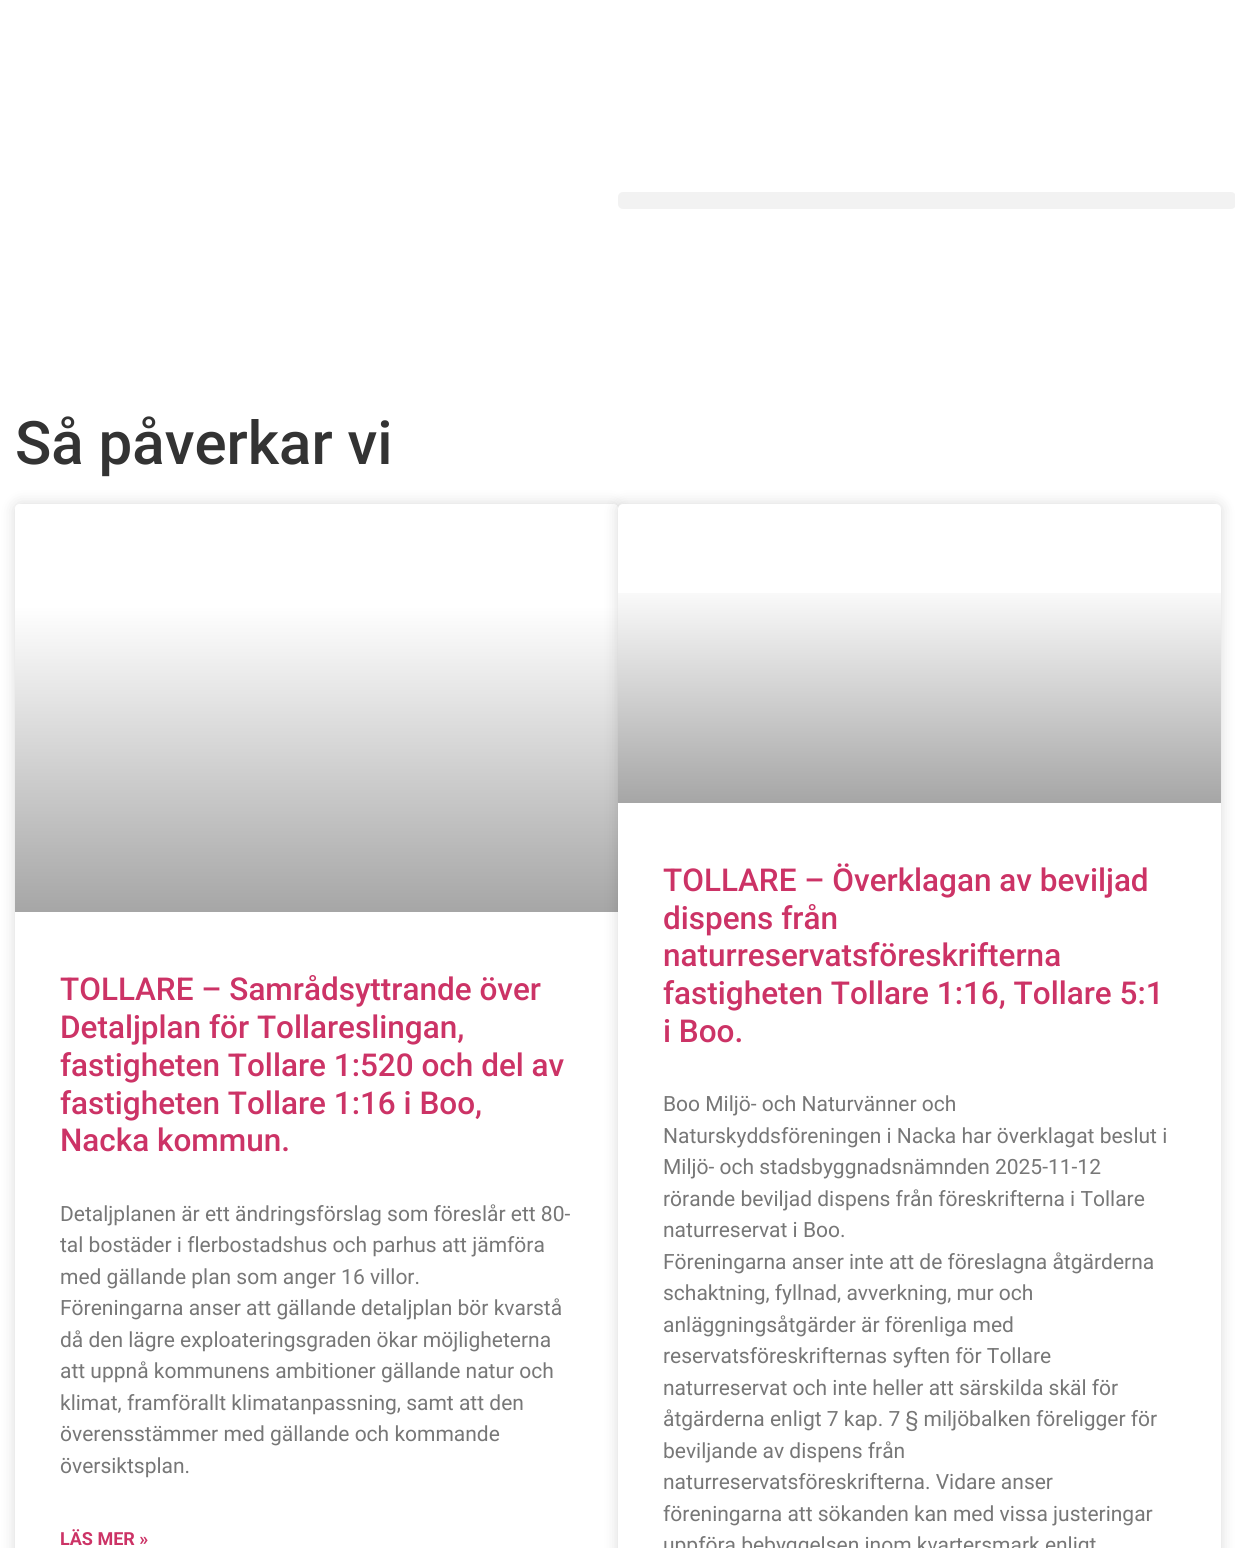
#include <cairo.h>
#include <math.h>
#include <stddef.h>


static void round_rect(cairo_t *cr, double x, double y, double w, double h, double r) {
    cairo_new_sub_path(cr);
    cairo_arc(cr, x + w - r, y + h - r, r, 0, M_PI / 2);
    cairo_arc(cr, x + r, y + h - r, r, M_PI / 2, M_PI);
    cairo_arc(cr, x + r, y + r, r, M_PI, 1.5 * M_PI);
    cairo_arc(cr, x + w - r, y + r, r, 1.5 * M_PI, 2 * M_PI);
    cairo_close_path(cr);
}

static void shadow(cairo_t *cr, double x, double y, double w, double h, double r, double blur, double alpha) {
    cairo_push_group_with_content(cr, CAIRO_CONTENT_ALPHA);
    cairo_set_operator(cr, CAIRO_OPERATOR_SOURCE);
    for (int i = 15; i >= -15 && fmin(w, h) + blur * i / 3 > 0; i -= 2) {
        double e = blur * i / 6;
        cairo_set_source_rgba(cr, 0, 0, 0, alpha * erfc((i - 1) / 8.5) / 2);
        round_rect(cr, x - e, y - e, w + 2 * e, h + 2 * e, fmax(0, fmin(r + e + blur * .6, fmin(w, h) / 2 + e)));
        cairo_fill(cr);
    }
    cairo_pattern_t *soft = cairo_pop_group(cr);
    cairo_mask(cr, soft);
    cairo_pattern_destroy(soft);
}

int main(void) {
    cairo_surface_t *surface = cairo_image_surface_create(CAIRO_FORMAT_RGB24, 1235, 1548);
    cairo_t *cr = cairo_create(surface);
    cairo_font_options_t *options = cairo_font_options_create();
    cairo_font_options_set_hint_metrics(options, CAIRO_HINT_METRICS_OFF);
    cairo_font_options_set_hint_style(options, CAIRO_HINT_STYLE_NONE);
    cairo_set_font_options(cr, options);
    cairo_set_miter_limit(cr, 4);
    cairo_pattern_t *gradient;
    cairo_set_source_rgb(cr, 1, 1, 1);
    cairo_paint(cr);
    cairo_set_source_rgb(cr, 0.949, 0.949, 0.949);
    round_rect(cr, 618, 192, 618, 17, 5);
    cairo_fill(cr);
    cairo_select_font_face(cr, "Roboto Medium", CAIRO_FONT_SLANT_NORMAL, CAIRO_FONT_WEIGHT_NORMAL);
    cairo_set_font_size(cr, 60);
    cairo_set_source_rgb(cr, 0.2, 0.2, 0.2);
    cairo_move_to(cr, 15, 464);
    cairo_show_text(cr, "Så påverkar vi");
    cairo_set_source_rgb(cr, 0, 0, 0);
    shadow(cr, 15, 504, 603, 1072, 5, 7.5, 0.15);
    cairo_set_source_rgb(cr, 1, 1, 1);
    round_rect(cr, 15, 504, 603, 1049, 5);
    cairo_fill(cr);
    gradient = cairo_pattern_create_linear(317, 912, 317, 504);
    cairo_pattern_add_color_stop_rgba(gradient, 0, 0.651, 0.651, 0.651, 1);
    cairo_pattern_add_color_stop_rgba(gradient, 0.75, 1, 1, 1, 1);
    cairo_set_source(cr, gradient);
    cairo_pattern_destroy(gradient);
    cairo_new_path(cr);
    cairo_move_to(cr, 20, 504);
    cairo_line_to(cr, 613, 504);
    cairo_curve_to(cr, 616, 504, 618, 506, 618, 509);
    cairo_line_to(cr, 618, 912);
    cairo_line_to(cr, 15, 912);
    cairo_line_to(cr, 15, 509);
    cairo_curve_to(cr, 15, 506, 17, 504, 20, 504);
    cairo_close_path(cr);
    cairo_fill(cr);
    cairo_set_font_size(cr, 31.5);
    cairo_set_source_rgb(cr, 0.8, 0.2, 0.4);
    cairo_move_to(cr, 60, 1000);
    cairo_show_text(cr, "TOLLARE – Samrådsyttrande över");
    cairo_move_to(cr, 60, 1038);
    cairo_show_text(cr, "Detaljplan för Tollareslingan,");
    cairo_move_to(cr, 60, 1076);
    cairo_show_text(cr, "fastigheten Tollare 1:520 och del av");
    cairo_move_to(cr, 60, 1114);
    cairo_show_text(cr, "fastigheten Tollare 1:16 i Boo,");
    cairo_move_to(cr, 60, 1151);
    cairo_show_text(cr, "Nacka kommun.");
    cairo_select_font_face(cr, "Roboto", CAIRO_FONT_SLANT_NORMAL, CAIRO_FONT_WEIGHT_NORMAL);
    cairo_set_font_size(cr, 21);
    cairo_set_source_rgb(cr, 0.467, 0.467, 0.467);
    cairo_move_to(cr, 60, 1221);
    cairo_show_text(cr, "Detaljplanen är ett ändringsförslag som föreslår ett 80-");
    cairo_move_to(cr, 60, 1252);
    cairo_show_text(cr, "tal bostäder i flerbostadshus och parhus att jämföra");
    cairo_move_to(cr, 60, 1284);
    cairo_show_text(cr, "med gällande plan som anger 16 villor.");
    cairo_move_to(cr, 60, 1315);
    cairo_show_text(cr, "Föreningarna anser att gällande detaljplan bör kvarstå");
    cairo_move_to(cr, 60, 1347);
    cairo_show_text(cr, "då den lägre exploateringsgraden ökar möjligheterna");
    cairo_move_to(cr, 60, 1378);
    cairo_show_text(cr, "att uppnå kommunens ambitioner gällande natur och");
    cairo_move_to(cr, 60, 1410);
    cairo_show_text(cr, "klimat, framförallt klimatanpassning, samt att den");
    cairo_move_to(cr, 60, 1441);
    cairo_show_text(cr, "överensstämmer med gällande och kommande");
    cairo_move_to(cr, 60, 1473);
    cairo_show_text(cr, "översiktsplan.");
    cairo_select_font_face(cr, "Roboto", CAIRO_FONT_SLANT_NORMAL, CAIRO_FONT_WEIGHT_BOLD);
    cairo_set_font_size(cr, 18);
    cairo_set_source_rgb(cr, 0.8, 0.2, 0.4);
    cairo_move_to(cr, 60, 1545);
    cairo_show_text(cr, "LÄS MER »");
    cairo_set_source_rgb(cr, 0, 0, 0);
    shadow(cr, 618, 504, 603, 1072, 5, 7.5, 0.15);
    cairo_set_source_rgb(cr, 1, 1, 1);
    round_rect(cr, 618, 504, 603, 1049, 5);
    cairo_fill(cr);
    gradient = cairo_pattern_create_linear(920, 803, 920, 504);
    cairo_pattern_add_color_stop_rgba(gradient, 0, 0, 0, 0, 0.35);
    cairo_pattern_add_color_stop_rgba(gradient, 0.75, 0, 0, 0, 0);
    cairo_set_source(cr, gradient);
    cairo_pattern_destroy(gradient);
    cairo_rectangle(cr, 618, 593, 603, 210);
    cairo_fill(cr);
    cairo_select_font_face(cr, "Roboto Medium", CAIRO_FONT_SLANT_NORMAL, CAIRO_FONT_WEIGHT_NORMAL);
    cairo_set_font_size(cr, 31.5);
    cairo_set_source_rgb(cr, 0.8, 0.2, 0.4);
    cairo_move_to(cr, 663, 891);
    cairo_show_text(cr, "TOLLARE – Överklagan av beviljad");
    cairo_move_to(cr, 663, 929);
    cairo_show_text(cr, "dispens från");
    cairo_move_to(cr, 663, 966);
    cairo_show_text(cr, "naturreservatsföreskrifterna");
    cairo_move_to(cr, 663, 1004);
    cairo_show_text(cr, "fastigheten Tollare 1:16, Tollare 5:1");
    cairo_move_to(cr, 663, 1042);
    cairo_show_text(cr, "i Boo.");
    cairo_select_font_face(cr, "Roboto", CAIRO_FONT_SLANT_NORMAL, CAIRO_FONT_WEIGHT_NORMAL);
    cairo_set_font_size(cr, 21);
    cairo_set_source_rgb(cr, 0.467, 0.467, 0.467);
    cairo_move_to(cr, 663, 1111);
    cairo_show_text(cr, "Boo Miljö- och Naturvänner och");
    cairo_move_to(cr, 663, 1143);
    cairo_show_text(cr, "Naturskyddsföreningen i Nacka har överklagat beslut i");
    cairo_move_to(cr, 663, 1174);
    cairo_show_text(cr, "Miljö- och stadsbyggnadsnämnden 2025-11-12");
    cairo_move_to(cr, 663, 1206);
    cairo_show_text(cr, "rörande beviljad dispens från föreskrifterna i Tollare");
    cairo_move_to(cr, 663, 1237);
    cairo_show_text(cr, "naturreservat i Boo.");
    cairo_move_to(cr, 663, 1269);
    cairo_show_text(cr, "Föreningarna anser inte att de föreslagna åtgärderna");
    cairo_move_to(cr, 663, 1300);
    cairo_show_text(cr, "schaktning, fyllnad, avverkning, mur och");
    cairo_move_to(cr, 663, 1332);
    cairo_show_text(cr, "anläggningsåtgärder är förenliga med");
    cairo_move_to(cr, 663, 1363);
    cairo_show_text(cr, "reservatsföreskrifternas syften för Tollare");
    cairo_move_to(cr, 663, 1395);
    cairo_show_text(cr, "naturreservat och inte heller att särskilda skäl för");
    cairo_move_to(cr, 663, 1426);
    cairo_show_text(cr, "åtgärderna enligt 7 kap. 7 § miljöbalken föreligger för");
    cairo_move_to(cr, 663, 1458);
    cairo_show_text(cr, "beviljande av dispens från");
    cairo_move_to(cr, 663, 1489);
    cairo_show_text(cr, "naturreservatsföreskrifterna. Vidare anser");
    cairo_move_to(cr, 663, 1521);
    cairo_show_text(cr, "föreningarna att sökanden kan med vissa justeringar");
    cairo_move_to(cr, 663, 1552);
    cairo_show_text(cr, "uppföra bebyggelsen inom kvartersmark enligt");
    cairo_surface_write_to_png(surface, "page.png");
    cairo_font_options_destroy(options);
    cairo_destroy(cr);
    cairo_surface_destroy(surface);
    return 0;
}
